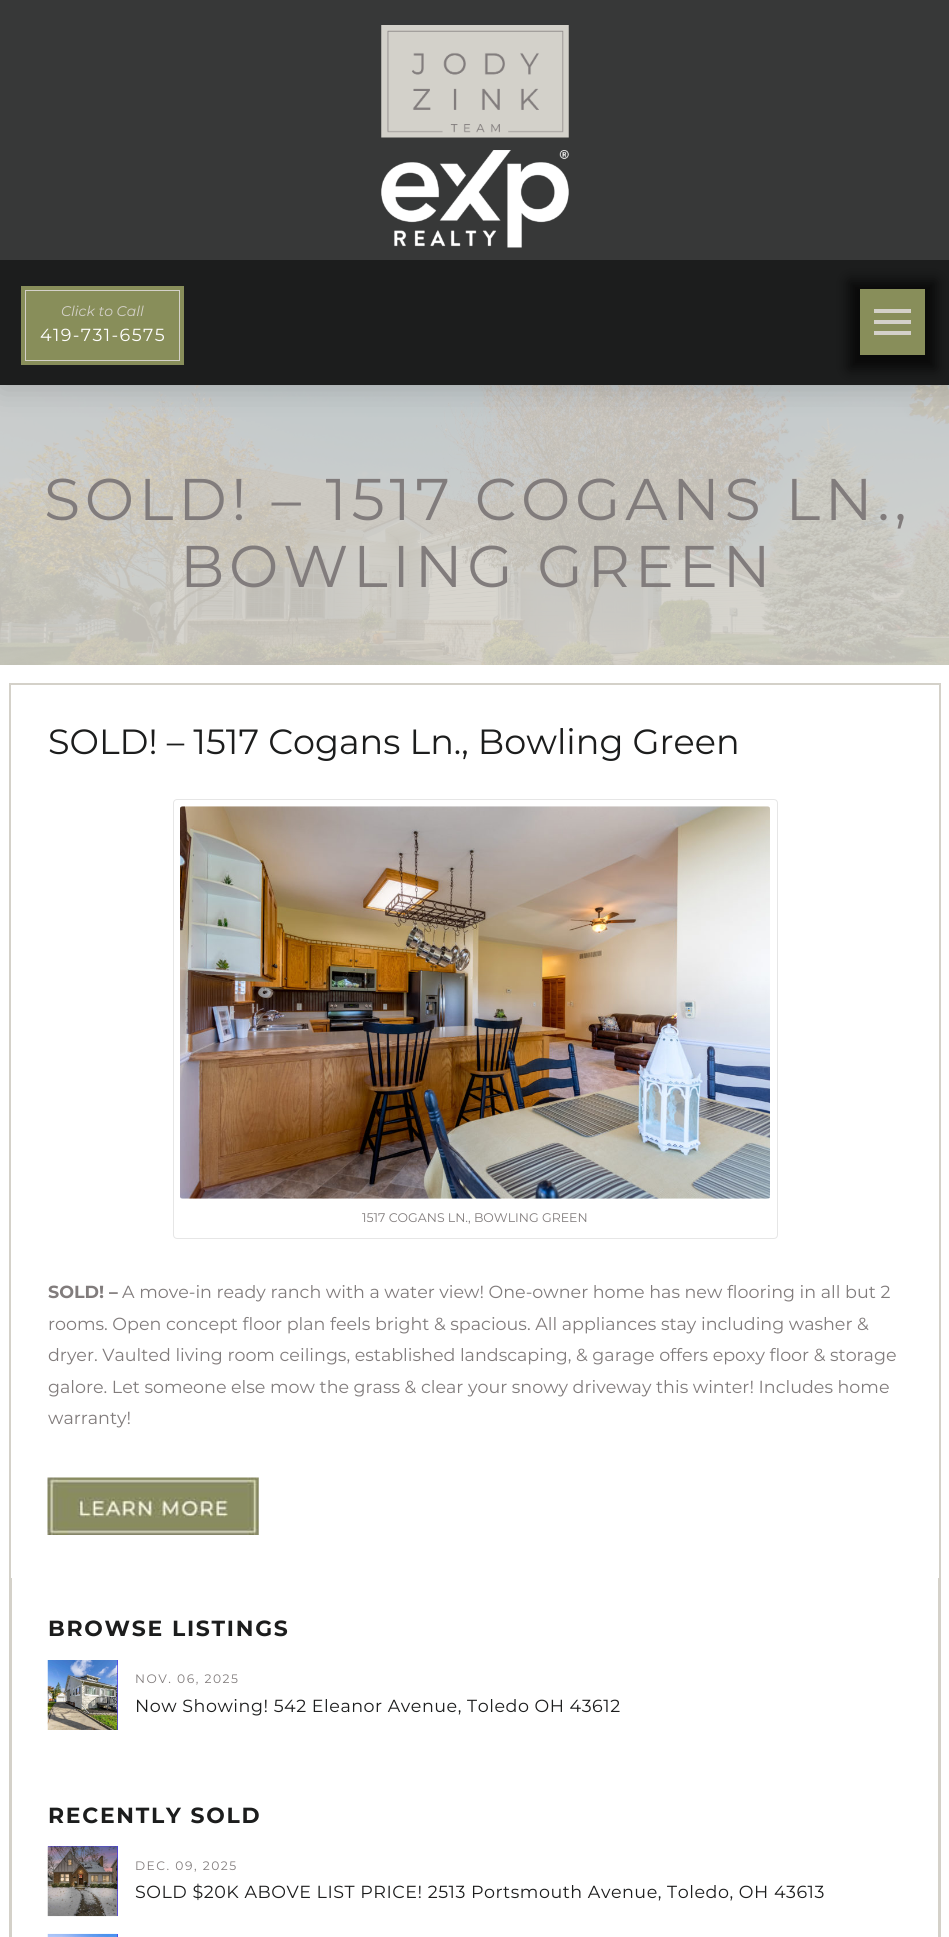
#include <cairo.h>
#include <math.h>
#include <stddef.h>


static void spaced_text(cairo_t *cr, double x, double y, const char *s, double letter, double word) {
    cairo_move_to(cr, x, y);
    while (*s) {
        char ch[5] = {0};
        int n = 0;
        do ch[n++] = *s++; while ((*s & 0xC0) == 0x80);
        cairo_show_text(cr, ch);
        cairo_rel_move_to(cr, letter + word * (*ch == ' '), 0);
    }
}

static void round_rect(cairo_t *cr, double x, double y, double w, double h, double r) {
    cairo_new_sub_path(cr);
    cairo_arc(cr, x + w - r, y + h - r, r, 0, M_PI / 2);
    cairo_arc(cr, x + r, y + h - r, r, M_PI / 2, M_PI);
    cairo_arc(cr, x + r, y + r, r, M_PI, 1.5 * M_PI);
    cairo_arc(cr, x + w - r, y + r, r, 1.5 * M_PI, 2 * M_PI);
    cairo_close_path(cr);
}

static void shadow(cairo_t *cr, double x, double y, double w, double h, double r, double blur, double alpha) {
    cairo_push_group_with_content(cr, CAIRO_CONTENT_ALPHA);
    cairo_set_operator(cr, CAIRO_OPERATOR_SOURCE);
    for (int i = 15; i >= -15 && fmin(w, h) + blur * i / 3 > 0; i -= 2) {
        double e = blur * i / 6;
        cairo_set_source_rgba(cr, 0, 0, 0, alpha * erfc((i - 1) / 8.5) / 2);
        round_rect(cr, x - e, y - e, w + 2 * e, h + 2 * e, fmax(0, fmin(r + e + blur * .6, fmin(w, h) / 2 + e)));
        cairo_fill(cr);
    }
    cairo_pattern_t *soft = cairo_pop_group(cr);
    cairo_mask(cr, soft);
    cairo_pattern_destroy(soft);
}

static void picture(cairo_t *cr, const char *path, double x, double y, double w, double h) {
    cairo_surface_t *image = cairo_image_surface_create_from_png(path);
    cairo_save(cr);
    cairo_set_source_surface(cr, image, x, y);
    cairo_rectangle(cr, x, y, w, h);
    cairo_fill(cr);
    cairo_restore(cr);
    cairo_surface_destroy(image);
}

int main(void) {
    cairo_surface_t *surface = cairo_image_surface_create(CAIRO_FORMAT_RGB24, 949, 1937);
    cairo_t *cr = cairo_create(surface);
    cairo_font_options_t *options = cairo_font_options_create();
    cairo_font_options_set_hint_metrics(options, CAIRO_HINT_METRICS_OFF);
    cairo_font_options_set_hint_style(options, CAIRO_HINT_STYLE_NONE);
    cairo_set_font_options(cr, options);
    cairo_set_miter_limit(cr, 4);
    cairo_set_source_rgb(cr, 1, 1, 1);
    cairo_paint(cr);
    picture(cr, "img3.png", 0, 385, 949, 280);
    cairo_set_source_rgb(cr, 0, 0, 0);
    shadow(cr, 0, 264, 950, 125, 0, 15.5, 0.15);
    cairo_set_source_rgb(cr, 0.11, 0.114, 0.114);
    cairo_rectangle(cr, 0, 260, 949, 125);
    cairo_fill(cr);
    cairo_set_source_rgb(cr, 0, 0, 0);
    shadow(cr, 849, 281, 87, 88, 0, 7, 0.72);
    cairo_set_source_rgb(cr, 0.216, 0.22, 0.22);
    cairo_rectangle(cr, 0, 0, 949, 260);
    cairo_fill(cr);
    picture(cr, "img1.png", 381, 25, 188, 113);
    picture(cr, "img2.png", 381, 150, 188, 98);
    cairo_rectangle(cr, 23, 288, 159, 75);
    cairo_set_source_rgb(cr, 0.533, 0.557, 0.353);
    cairo_set_line_width(cr, 4);
    cairo_stroke(cr);
    cairo_rectangle(cr, 25.5, 290.5, 154, 70);
    cairo_fill_preserve(cr);
    cairo_set_source_rgb(cr, 0.831, 0.82, 0.788);
    cairo_set_line_width(cr, 1);
    cairo_stroke(cr);
    cairo_select_font_face(cr, "Montserrat", CAIRO_FONT_SLANT_ITALIC, CAIRO_FONT_WEIGHT_NORMAL);
    cairo_set_font_size(cr, 14);
    cairo_move_to(cr, 61, 316);
    cairo_show_text(cr, "Click to Call");
    cairo_select_font_face(cr, "Montserrat", CAIRO_FONT_SLANT_NORMAL, CAIRO_FONT_WEIGHT_NORMAL);
    cairo_set_font_size(cr, 17.5);
    cairo_set_source_rgb(cr, 1, 1, 1);
    spaced_text(cr, 40, 341, "419-731-6575", 1.4, 0);
    cairo_set_source_rgb(cr, 0.533, 0.557, 0.353);
    cairo_rectangle(cr, 860, 289, 65, 66);
    cairo_fill(cr);
    cairo_set_source_rgb(cr, 0.831, 0.82, 0.788);
    cairo_rectangle(cr, 874, 309, 37, 4);
    cairo_fill(cr);
    cairo_rectangle(cr, 874, 320, 37, 4);
    cairo_fill(cr);
    cairo_rectangle(cr, 874, 331, 37, 4);
    cairo_fill(cr);
    cairo_set_font_size(cr, 58.75);
    cairo_set_source_rgb(cr, 0.506, 0.486, 0.486);
    spaced_text(cr, 44, 520, "SOLD! – 1517 COGANS LN.,", 4.7, 0);
    spaced_text(cr, 180, 587, "BOWLING GREEN", 4.7, 0);
    cairo_rectangle(cr, 10.5, 684.5, 929, 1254);
    cairo_set_source_rgb(cr, 0.831, 0.82, 0.788);
    cairo_set_line_width(cr, 3);
    cairo_stroke(cr);
    cairo_set_source_rgb(cr, 1, 1, 1);
    cairo_rectangle(cr, 11, 685, 928, 893);
    cairo_fill(cr);
    cairo_set_font_size(cr, 35);
    cairo_set_source_rgb(cr, 0.11, 0.114, 0.114);
    cairo_move_to(cr, 48, 754);
    cairo_show_text(cr, "SOLD! – 1517 Cogans Ln., Bowling Green");
    round_rect(cr, 173.5, 799.5, 604, 439, 3.5);
    cairo_set_source_rgb(cr, 0.902, 0.902, 0.902);
    cairo_set_line_width(cr, 1);
    cairo_stroke(cr);
    picture(cr, "img4.png", 180, 806, 590, 393);
    cairo_set_font_size(cr, 12.5);
    cairo_set_source_rgb(cr, 0.506, 0.486, 0.486);
    cairo_move_to(cr, 362, 1222);
    cairo_show_text(cr, "1517 COGANS LN., BOWLING GREEN");
    cairo_select_font_face(cr, "Montserrat", CAIRO_FONT_SLANT_NORMAL, CAIRO_FONT_WEIGHT_BOLD);
    cairo_set_font_size(cr, 17.5);
    cairo_move_to(cr, 48, 1298);
    cairo_show_text(cr, "SOLD! –");
    cairo_select_font_face(cr, "Montserrat", CAIRO_FONT_SLANT_NORMAL, CAIRO_FONT_WEIGHT_NORMAL);
    cairo_move_to(cr, 122, 1298);
    cairo_show_text(cr, "A move-in ready ranch with a water view! One-owner home has new flooring in all but 2");
    cairo_move_to(cr, 48, 1330);
    cairo_show_text(cr, "rooms. Open concept floor plan feels bright & spacious. All appliances stay including washer &");
    cairo_move_to(cr, 48, 1361);
    cairo_show_text(cr, "dryer. Vaulted living room ceilings, established landscaping, & garage offers epoxy floor & storage");
    cairo_move_to(cr, 48, 1393);
    cairo_show_text(cr, "galore. Let someone else mow the grass & clear your snowy driveway this winter! Includes home");
    cairo_move_to(cr, 48, 1424);
    cairo_show_text(cr, "warranty!");
    picture(cr, "img5.png", 47, 1477, 212, 58);
    cairo_select_font_face(cr, "Montserrat", CAIRO_FONT_SLANT_NORMAL, CAIRO_FONT_WEIGHT_BOLD);
    cairo_set_font_size(cr, 21.9);
    cairo_set_source_rgb(cr, 0.11, 0.114, 0.114);
    spaced_text(cr, 48, 1636, "BROWSE LISTINGS", 1.75, 0);
    cairo_set_source_rgb(cr, 0.298, 0.231, 0.914);
    cairo_rectangle(cr, 117, 1660, 1, 70);
    cairo_fill(cr);
    picture(cr, "img6.png", 47, 1660, 71, 70);
    cairo_select_font_face(cr, "Montserrat", CAIRO_FONT_SLANT_NORMAL, CAIRO_FONT_WEIGHT_NORMAL);
    cairo_set_font_size(cr, 12.25);
    cairo_set_source_rgb(cr, 0.506, 0.486, 0.486);
    spaced_text(cr, 135, 1683, "NOV. 06, 2025", 1.5, 0);
    cairo_set_font_size(cr, 17.5);
    cairo_set_source_rgb(cr, 0.11, 0.114, 0.114);
    spaced_text(cr, 135, 1712, "Now Showing! 542 Eleanor Avenue, Toledo OH 43612", 0.53, 0);
    cairo_select_font_face(cr, "Montserrat", CAIRO_FONT_SLANT_NORMAL, CAIRO_FONT_WEIGHT_BOLD);
    cairo_set_font_size(cr, 21.9);
    spaced_text(cr, 48, 1823, "RECENTLY SOLD", 1.75, 0);
    cairo_set_source_rgb(cr, 0.298, 0.231, 0.914);
    cairo_rectangle(cr, 48, 1846, 70, 70);
    cairo_fill(cr);
    picture(cr, "img7.png", 47, 1846, 71, 71);
    cairo_select_font_face(cr, "Montserrat", CAIRO_FONT_SLANT_NORMAL, CAIRO_FONT_WEIGHT_NORMAL);
    cairo_set_font_size(cr, 12.25);
    cairo_set_source_rgb(cr, 0.506, 0.486, 0.486);
    spaced_text(cr, 135, 1870, "DEC. 09, 2025", 1.5, 0);
    cairo_set_font_size(cr, 17.5);
    cairo_set_source_rgb(cr, 0.11, 0.114, 0.114);
    spaced_text(cr, 135, 1898, "SOLD $20K ABOVE LIST PRICE! 2513 Portsmouth Avenue, Toledo, OH 43613", 0.53, 0);
    cairo_set_source_rgb(cr, 0.298, 0.231, 0.914);
    cairo_rectangle(cr, 117, 1934, 1, 3);
    cairo_fill(cr);
    picture(cr, "img8.png", 47, 1933, 71, 4);
    cairo_surface_write_to_png(surface, "page.png");
    cairo_font_options_destroy(options);
    cairo_destroy(cr);
    cairo_surface_destroy(surface);
    return 0;
}
